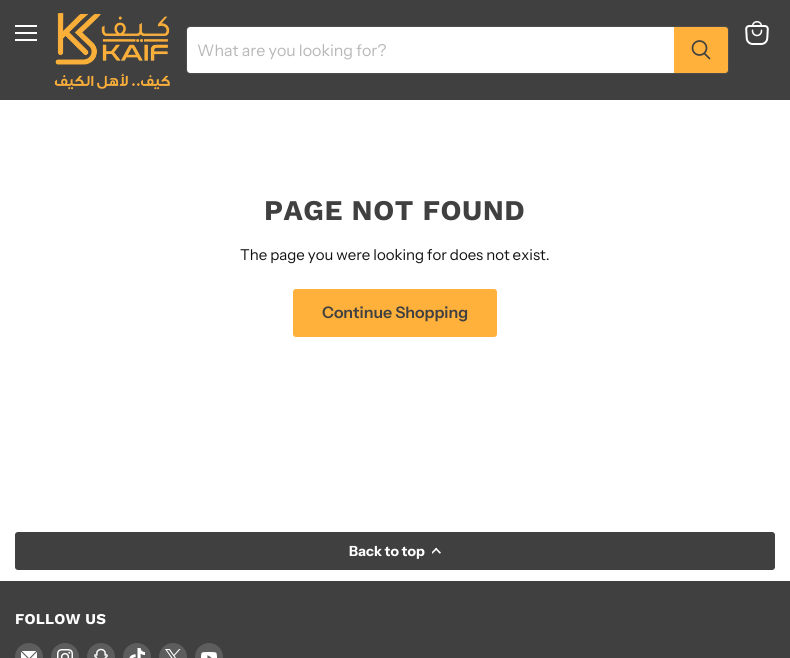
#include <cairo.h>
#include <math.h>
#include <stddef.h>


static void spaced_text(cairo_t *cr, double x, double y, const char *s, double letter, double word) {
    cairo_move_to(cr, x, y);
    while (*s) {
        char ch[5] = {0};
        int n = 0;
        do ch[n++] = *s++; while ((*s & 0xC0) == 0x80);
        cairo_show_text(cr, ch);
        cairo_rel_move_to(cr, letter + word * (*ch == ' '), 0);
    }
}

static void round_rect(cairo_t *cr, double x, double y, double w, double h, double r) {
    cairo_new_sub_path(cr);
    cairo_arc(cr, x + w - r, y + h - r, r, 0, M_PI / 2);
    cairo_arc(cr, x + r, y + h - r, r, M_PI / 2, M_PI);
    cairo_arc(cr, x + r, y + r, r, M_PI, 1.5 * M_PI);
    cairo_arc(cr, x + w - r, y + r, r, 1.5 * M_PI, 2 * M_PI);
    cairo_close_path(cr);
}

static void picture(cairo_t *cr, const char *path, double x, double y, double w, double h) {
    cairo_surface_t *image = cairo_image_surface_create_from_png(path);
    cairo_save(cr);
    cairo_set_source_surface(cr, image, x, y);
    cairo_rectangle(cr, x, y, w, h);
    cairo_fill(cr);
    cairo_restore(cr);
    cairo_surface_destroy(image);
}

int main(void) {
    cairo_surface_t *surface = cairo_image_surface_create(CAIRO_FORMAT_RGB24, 790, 658);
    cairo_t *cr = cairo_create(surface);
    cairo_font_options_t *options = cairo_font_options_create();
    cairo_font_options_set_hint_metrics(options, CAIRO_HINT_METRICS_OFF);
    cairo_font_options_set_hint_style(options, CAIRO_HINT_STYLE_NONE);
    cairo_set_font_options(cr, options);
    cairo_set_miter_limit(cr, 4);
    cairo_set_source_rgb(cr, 1, 1, 1);
    cairo_paint(cr);
    cairo_set_source_rgb(cr, 0.251, 0.251, 0.255);
    cairo_rectangle(cr, 0, 0, 790, 100);
    cairo_fill(cr);
    cairo_set_source_rgb(cr, 1, 1, 1);
    cairo_rectangle(cr, 15, 25, 22, 2);
    cairo_fill(cr);
    cairo_rectangle(cr, 15, 32, 22, 2);
    cairo_fill(cr);
    cairo_rectangle(cr, 15, 39, 22, 2);
    cairo_fill(cr);
    picture(cr, "img1.png", 745, 21, 24, 24);
    picture(cr, "img2.png", 54, 12, 116, 78);
    round_rect(cr, 186.5, 26.5, 542, 47, 3.5);
    cairo_set_source_rgb(cr, 0.302, 0.302, 0.306);
    cairo_set_line_width(cr, 1);
    cairo_stroke(cr);
    cairo_set_source_rgb(cr, 1, 1, 1);
    cairo_new_path(cr);
    cairo_move_to(cr, 190, 27);
    cairo_line_to(cr, 674, 27);
    cairo_line_to(cr, 674, 73);
    cairo_line_to(cr, 190, 73);
    cairo_curve_to(cr, 188.5, 73, 187, 71.5, 187, 70);
    cairo_line_to(cr, 187, 30);
    cairo_curve_to(cr, 187, 28.5, 188.5, 27, 190, 27);
    cairo_close_path(cr);
    cairo_fill(cr);
    cairo_select_font_face(cr, "Instrument Sans", CAIRO_FONT_SLANT_NORMAL, CAIRO_FONT_WEIGHT_NORMAL);
    cairo_set_font_size(cr, 16);
    cairo_set_source_rgb(cr, 0.722, 0.722, 0.722);
    cairo_move_to(cr, 197, 56);
    cairo_show_text(cr, "What are you looking for?");
    cairo_set_source_rgb(cr, 1, 0.694, 0.231);
    cairo_new_path(cr);
    cairo_move_to(cr, 674.5, 27.5);
    cairo_line_to(cr, 725, 27.5);
    cairo_curve_to(cr, 726.5, 27.5, 727.5, 28.5, 727.5, 30);
    cairo_line_to(cr, 727.5, 70);
    cairo_curve_to(cr, 727.5, 71.5, 726.5, 72.5, 725, 72.5);
    cairo_line_to(cr, 674.5, 72.5);
    cairo_close_path(cr);
    cairo_fill_preserve(cr);
    cairo_stroke(cr);
    cairo_new_path(cr);
    cairo_move_to(cr, 709.5, 58.5);
    cairo_line_to(cr, 704.5, 53.5);
    cairo_set_source_rgb(cr, 0.251, 0.251, 0.255);
    cairo_set_line_width(cr, 1.7);
    cairo_set_line_cap(cr, CAIRO_LINE_CAP_ROUND);
    cairo_stroke(cr);
    cairo_arc(cr, 699.5, 48, 7, 0, 2 * M_PI);
    cairo_set_line_cap(cr, CAIRO_LINE_CAP_BUTT);
    cairo_stroke(cr);
    cairo_select_font_face(cr, "Work Sans", CAIRO_FONT_SLANT_NORMAL, CAIRO_FONT_WEIGHT_BOLD);
    cairo_set_font_size(cr, 28.5);
    spaced_text(cr, 264, 220, "PAGE NOT FOUND", 0.5, 0);
    cairo_select_font_face(cr, "Instrument Sans", CAIRO_FONT_SLANT_NORMAL, CAIRO_FONT_WEIGHT_NORMAL);
    cairo_set_font_size(cr, 15);
    cairo_set_source_rgb(cr, 0.071, 0.071, 0.071);
    cairo_move_to(cr, 240, 260);
    cairo_show_text(cr, "The page you were looking for does not exist.");
    cairo_set_source_rgb(cr, 1, 0.694, 0.231);
    round_rect(cr, 293.5, 289.5, 203, 47, 2.5);
    cairo_fill_preserve(cr);
    cairo_set_line_width(cr, 1);
    cairo_stroke(cr);
    cairo_select_font_face(cr, "Instrument Sans SemiBold", CAIRO_FONT_SLANT_NORMAL, CAIRO_FONT_WEIGHT_NORMAL);
    cairo_set_font_size(cr, 15.9);
    cairo_set_source_rgb(cr, 0.251, 0.251, 0.255);
    cairo_move_to(cr, 322, 318);
    cairo_show_text(cr, "Continue Shopping");
    round_rect(cr, 15.5, 532.5, 759, 37, 2.5);
    cairo_fill_preserve(cr);
    cairo_stroke(cr);
    cairo_select_font_face(cr, "Instrument Sans", CAIRO_FONT_SLANT_NORMAL, CAIRO_FONT_WEIGHT_BOLD);
    cairo_set_font_size(cr, 14);
    cairo_set_source_rgb(cr, 1, 1, 1);
    cairo_move_to(cr, 349, 556);
    cairo_show_text(cr, "Back to top");
    picture(cr, "img3.png", 432, 547, 9, 7);
    cairo_set_source_rgb(cr, 0.251, 0.251, 0.255);
    cairo_rectangle(cr, 0, 581, 790, 77);
    cairo_fill(cr);
    cairo_select_font_face(cr, "Work Sans", CAIRO_FONT_SLANT_NORMAL, CAIRO_FONT_WEIGHT_BOLD);
    cairo_set_font_size(cr, 15);
    cairo_set_source_rgb(cr, 1, 1, 1);
    spaced_text(cr, 15, 624, "FOLLOW US", 0.25, 0);
    cairo_set_source_rgb(cr, 0.365, 0.365, 0.369);
    cairo_new_path(cr);
    cairo_arc(cr, 29, 657, 14, 0, 2 * M_PI);
    cairo_fill(cr);
    picture(cr, "img4.png", 21, 651, 16, 7);
    cairo_arc(cr, 65, 657, 14, 0, 2 * M_PI);
    cairo_fill(cr);
    picture(cr, "img5.png", 57, 649, 16, 9);
    cairo_arc(cr, 101, 657, 14, 0, 2 * M_PI);
    cairo_fill(cr);
    picture(cr, "img6.png", 94, 648, 14, 10);
    cairo_arc(cr, 137, 657, 14, 0, 2 * M_PI);
    cairo_fill(cr);
    picture(cr, "img7.png", 129, 648, 16, 10);
    cairo_arc(cr, 173, 657, 14, 0, 2 * M_PI);
    cairo_fill(cr);
    picture(cr, "img8.png", 165, 649, 16, 9);
    cairo_arc(cr, 209, 657, 14, 0, 2 * M_PI);
    cairo_fill(cr);
    picture(cr, "img9.png", 201, 652, 16, 6);
    cairo_surface_write_to_png(surface, "page.png");
    cairo_font_options_destroy(options);
    cairo_destroy(cr);
    cairo_surface_destroy(surface);
    return 0;
}
